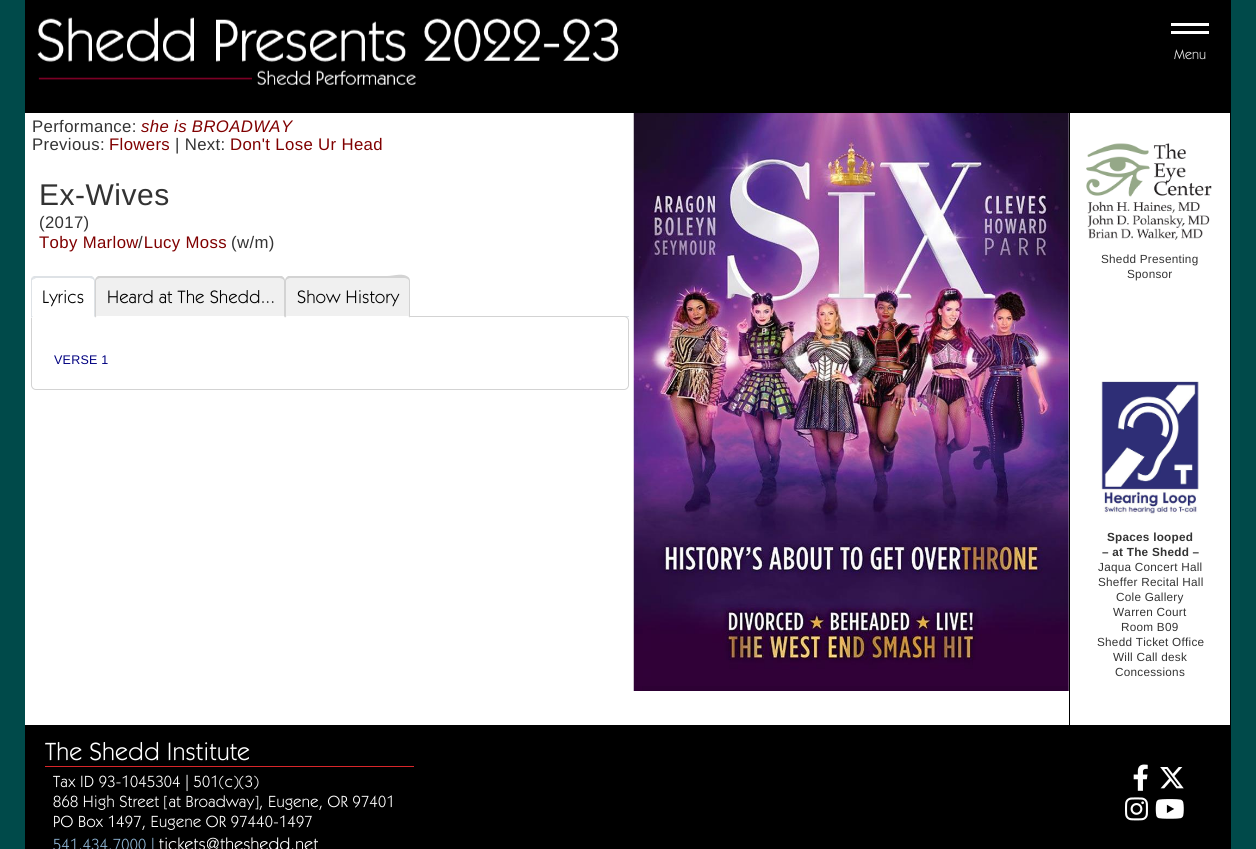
#include <cairo.h>
#include <math.h>
#include <stddef.h>


static void spaced_text(cairo_t *cr, double x, double y, const char *s, double letter, double word) {
    cairo_move_to(cr, x, y);
    while (*s) {
        char ch[5] = {0};
        int n = 0;
        do ch[n++] = *s++; while ((*s & 0xC0) == 0x80);
        cairo_show_text(cr, ch);
        cairo_rel_move_to(cr, letter + word * (*ch == ' '), 0);
    }
}

static void picture(cairo_t *cr, const char *path, double x, double y, double w, double h) {
    cairo_surface_t *image = cairo_image_surface_create_from_png(path);
    cairo_save(cr);
    cairo_set_source_surface(cr, image, x, y);
    cairo_rectangle(cr, x, y, w, h);
    cairo_fill(cr);
    cairo_restore(cr);
    cairo_surface_destroy(image);
}

int main(void) {
    cairo_surface_t *surface = cairo_image_surface_create(CAIRO_FORMAT_RGB24, 1256, 849);
    cairo_t *cr = cairo_create(surface);
    cairo_font_options_t *options = cairo_font_options_create();
    cairo_font_options_set_hint_metrics(options, CAIRO_HINT_METRICS_OFF);
    cairo_font_options_set_hint_style(options, CAIRO_HINT_STYLE_NONE);
    cairo_set_font_options(cr, options);
    cairo_set_miter_limit(cr, 4);
    cairo_set_source_rgb(cr, 0, 0.29, 0.29);
    cairo_paint(cr);
    cairo_set_source_rgb(cr, 0, 0, 0);
    cairo_rectangle(cr, 25, 0, 1206, 113);
    cairo_fill(cr);
    picture(cr, "img1.png", 37, 17, 582, 68);
    cairo_set_source_rgb(cr, 1, 1, 1);
    cairo_rectangle(cr, 1171, 23, 38, 3);
    cairo_fill(cr);
    cairo_rectangle(cr, 1171, 31, 38, 3);
    cairo_fill(cr);
    cairo_select_font_face(cr, "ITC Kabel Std", CAIRO_FONT_SLANT_NORMAL, CAIRO_FONT_WEIGHT_NORMAL);
    cairo_set_font_size(cr, 14);
    cairo_set_source_rgb(cr, 0.902, 0.902, 0.902);
    cairo_move_to(cr, 1174, 59);
    cairo_show_text(cr, "Menu");
    cairo_set_source_rgb(cr, 1, 1, 1);
    cairo_rectangle(cr, 25, 113, 1205, 612);
    cairo_fill(cr);
    cairo_select_font_face(cr, "Liberation Sans", CAIRO_FONT_SLANT_NORMAL, CAIRO_FONT_WEIGHT_NORMAL);
    cairo_set_font_size(cr, 16.75);
    cairo_set_source_rgb(cr, 0.2, 0.2, 0.2);
    spaced_text(cr, 32, 132, "Performance:", 0.35, 0);
    cairo_select_font_face(cr, "Liberation Sans", CAIRO_FONT_SLANT_ITALIC, CAIRO_FONT_WEIGHT_NORMAL);
    cairo_set_source_rgb(cr, 0.502, 0, 0);
    spaced_text(cr, 141, 132, "she is BROADWAY", 0.35, 0);
    cairo_select_font_face(cr, "Liberation Sans", CAIRO_FONT_SLANT_NORMAL, CAIRO_FONT_WEIGHT_NORMAL);
    cairo_set_source_rgb(cr, 0.2, 0.2, 0.2);
    spaced_text(cr, 32, 150, "Previous:", 0.35, 0);
    cairo_set_source_rgb(cr, 0.502, 0, 0);
    spaced_text(cr, 109, 150, "Flowers", 0.35, 0);
    cairo_set_source_rgb(cr, 0.2, 0.2, 0.2);
    spaced_text(cr, 175, 150, "| Next:", 0.35, 0);
    cairo_set_source_rgb(cr, 0.502, 0, 0);
    spaced_text(cr, 230, 150, "Don't Lose Ur Head", 0.35, 0);
    cairo_set_font_size(cr, 30);
    cairo_set_source_rgb(cr, 0.2, 0.2, 0.2);
    spaced_text(cr, 39, 205, "Ex-Wives", 0.5, 0);
    cairo_set_font_size(cr, 16.75);
    spaced_text(cr, 39, 228, "(2017)", 0.35, 0);
    cairo_set_source_rgb(cr, 0.502, 0, 0);
    spaced_text(cr, 39, 248, "Toby Marlow Lucy Moss", 0.35, 0);
    cairo_set_source_rgb(cr, 0.2, 0.2, 0.2);
    spaced_text(cr, 138, 248, "/", 0.35, 0);
    spaced_text(cr, 231, 248, "(w/m)", 0.35, 0);
    cairo_set_source_rgb(cr, 0.871, 0.886, 0.902);
    cairo_rectangle(cr, 624, 316, 5, 1);
    cairo_fill(cr);
    cairo_new_path(cr);
    cairo_move_to(cr, 31.5, 316.5);
    cairo_line_to(cr, 624, 316.5);
    cairo_curve_to(cr, 626.5, 316.5, 628.5, 318.5, 628.5, 321);
    cairo_line_to(cr, 628.5, 385);
    cairo_curve_to(cr, 628.5, 387.5, 626.5, 389.5, 624, 389.5);
    cairo_line_to(cr, 36, 389.5);
    cairo_curve_to(cr, 33.5, 389.5, 31.5, 387.5, 31.5, 385);
    cairo_close_path(cr);
    cairo_set_source_rgb(cr, 0.827, 0.827, 0.827);
    cairo_set_line_width(cr, 1);
    cairo_stroke(cr);
    cairo_set_source_rgb(cr, 1, 1, 1);
    cairo_new_path(cr);
    cairo_move_to(cr, 36, 276);
    cairo_line_to(cr, 90, 276);
    cairo_curve_to(cr, 93, 276, 95, 278, 95, 281);
    cairo_line_to(cr, 95, 318);
    cairo_line_to(cr, 31, 318);
    cairo_line_to(cr, 31, 281);
    cairo_curve_to(cr, 31, 278, 33, 276, 36, 276);
    cairo_close_path(cr);
    cairo_fill(cr);
    cairo_set_source_rgb(cr, 0.871, 0.886, 0.902);
    cairo_new_path(cr);
    cairo_move_to(cr, 36, 278);
    cairo_line_to(cr, 34, 279);
    cairo_line_to(cr, 32, 277);
    cairo_line_to(cr, 34, 276);
    cairo_line_to(cr, 92, 276);
    cairo_line_to(cr, 94, 278);
    cairo_line_to(cr, 93, 279);
    cairo_line_to(cr, 90, 278);
    cairo_close_path(cr);
    cairo_fill(cr);
    cairo_new_path(cr);
    cairo_move_to(cr, 95, 317.5);
    cairo_line_to(cr, 95, 281);
    cairo_curve_to(cr, 95, 279.5, 94.5, 278.5, 93.5, 277.5);
    cairo_line_to(cr, 92.5, 278.5);
    cairo_line_to(cr, 94, 280.5);
    cairo_line_to(cr, 94, 316);
    cairo_line_to(cr, 93.5, 316);
    cairo_close_path(cr);
    cairo_fill(cr);
    cairo_set_source_rgb(cr, 1, 1, 1);
    cairo_new_path(cr);
    cairo_move_to(cr, 95, 318);
    cairo_line_to(cr, 94, 316);
    cairo_line_to(cr, 33, 316);
    cairo_line_to(cr, 31, 318);
    cairo_close_path(cr);
    cairo_fill(cr);
    cairo_set_source_rgb(cr, 0.871, 0.886, 0.902);
    cairo_new_path(cr);
    cairo_move_to(cr, 31, 318);
    cairo_line_to(cr, 31, 279);
    cairo_line_to(cr, 32, 277);
    cairo_line_to(cr, 34, 279);
    cairo_line_to(cr, 32, 280);
    cairo_line_to(cr, 32, 316);
    cairo_line_to(cr, 33, 316);
    cairo_close_path(cr);
    cairo_fill(cr);
    cairo_select_font_face(cr, "ITC Kabel Std", CAIRO_FONT_SLANT_NORMAL, CAIRO_FONT_WEIGHT_NORMAL);
    cairo_set_font_size(cr, 18);
    cairo_set_source_rgb(cr, 0, 0, 0);
    spaced_text(cr, 42, 303, "Lyrics", 0.4, 0);
    cairo_set_source_rgb(cr, 0.941, 0.941, 0.941);
    cairo_new_path(cr);
    cairo_move_to(cr, 100, 276);
    cairo_line_to(cr, 280, 276);
    cairo_curve_to(cr, 283, 276, 285, 278, 285, 281);
    cairo_line_to(cr, 285, 318);
    cairo_line_to(cr, 95, 318);
    cairo_line_to(cr, 95, 281);
    cairo_curve_to(cr, 95, 278, 97, 276, 100, 276);
    cairo_close_path(cr);
    cairo_fill(cr);
    cairo_set_source_rgb(cr, 0.827, 0.827, 0.827);
    cairo_new_path(cr);
    cairo_move_to(cr, 100, 278);
    cairo_line_to(cr, 97, 279);
    cairo_line_to(cr, 96, 278);
    cairo_line_to(cr, 98, 276);
    cairo_line_to(cr, 282, 276);
    cairo_line_to(cr, 284, 278);
    cairo_line_to(cr, 283, 279);
    cairo_line_to(cr, 280, 278);
    cairo_close_path(cr);
    cairo_fill(cr);
    cairo_new_path(cr);
    cairo_move_to(cr, 285, 317.5);
    cairo_line_to(cr, 285, 281);
    cairo_curve_to(cr, 285, 279.5, 284.5, 278.5, 283.5, 277.5);
    cairo_line_to(cr, 282.5, 278.5);
    cairo_line_to(cr, 284, 280.5);
    cairo_line_to(cr, 284, 316);
    cairo_line_to(cr, 283.5, 316);
    cairo_close_path(cr);
    cairo_fill(cr);
    cairo_set_source_rgb(cr, 1, 1, 1);
    cairo_new_path(cr);
    cairo_move_to(cr, 285, 318);
    cairo_line_to(cr, 95, 318);
    cairo_line_to(cr, 96, 316);
    cairo_line_to(cr, 284, 316);
    cairo_close_path(cr);
    cairo_fill(cr);
    cairo_set_source_rgb(cr, 0.827, 0.827, 0.827);
    cairo_new_path(cr);
    cairo_move_to(cr, 95, 317.5);
    cairo_line_to(cr, 96.5, 316);
    cairo_line_to(cr, 96, 316);
    cairo_line_to(cr, 96, 280.5);
    cairo_line_to(cr, 97.5, 278.5);
    cairo_line_to(cr, 96.5, 277.5);
    cairo_curve_to(cr, 95.5, 278.5, 95, 279.5, 95, 281);
    cairo_close_path(cr);
    cairo_fill(cr);
    cairo_set_source_rgb(cr, 0, 0, 0);
    spaced_text(cr, 107, 303, "Heard at The Shedd...", 0.4, 0);
    cairo_set_source_rgb(cr, 0.941, 0.941, 0.941);
    cairo_new_path(cr);
    cairo_move_to(cr, 290, 276);
    cairo_line_to(cr, 405, 276);
    cairo_curve_to(cr, 408, 276, 410, 278, 410, 281);
    cairo_line_to(cr, 410, 318);
    cairo_line_to(cr, 285, 318);
    cairo_line_to(cr, 285, 281);
    cairo_curve_to(cr, 285, 278, 287, 276, 290, 276);
    cairo_close_path(cr);
    cairo_fill(cr);
    cairo_set_source_rgb(cr, 0.827, 0.827, 0.827);
    cairo_new_path(cr);
    cairo_move_to(cr, 290, 278);
    cairo_line_to(cr, 287, 279);
    cairo_line_to(cr, 286, 278);
    cairo_line_to(cr, 288, 276);
    cairo_line_to(cr, 387, 276);
    cairo_curve_to(cr, 394, 276, 404, 272, 409, 278);
    cairo_line_to(cr, 408, 279);
    cairo_line_to(cr, 405, 278);
    cairo_close_path(cr);
    cairo_fill(cr);
    cairo_new_path(cr);
    cairo_move_to(cr, 410, 317.5);
    cairo_line_to(cr, 410, 281);
    cairo_curve_to(cr, 410, 279.5, 409.5, 278.5, 408.5, 277.5);
    cairo_line_to(cr, 407.5, 278.5);
    cairo_line_to(cr, 409, 280.5);
    cairo_line_to(cr, 409, 316);
    cairo_line_to(cr, 408.5, 316);
    cairo_close_path(cr);
    cairo_fill(cr);
    cairo_set_source_rgb(cr, 1, 1, 1);
    cairo_new_path(cr);
    cairo_move_to(cr, 410, 318);
    cairo_line_to(cr, 285, 318);
    cairo_line_to(cr, 286, 316);
    cairo_line_to(cr, 408, 316);
    cairo_close_path(cr);
    cairo_fill(cr);
    cairo_set_source_rgb(cr, 0.827, 0.827, 0.827);
    cairo_new_path(cr);
    cairo_move_to(cr, 285, 317.5);
    cairo_line_to(cr, 286.5, 316);
    cairo_line_to(cr, 286, 316);
    cairo_line_to(cr, 286, 280.5);
    cairo_line_to(cr, 287.5, 278.5);
    cairo_line_to(cr, 286.5, 277.5);
    cairo_curve_to(cr, 285.5, 278.5, 285, 279.5, 285, 281);
    cairo_close_path(cr);
    cairo_fill(cr);
    cairo_set_source_rgb(cr, 0, 0, 0);
    spaced_text(cr, 297, 303, "Show History", 0.4, 0);
    cairo_select_font_face(cr, "Liberation Sans", CAIRO_FONT_SLANT_NORMAL, CAIRO_FONT_WEIGHT_NORMAL);
    cairo_set_font_size(cr, 12.5);
    cairo_set_source_rgb(cr, 0, 0, 0.502);
    spaced_text(cr, 54, 364, "VERSE 1", 0.25, 0);
    picture(cr, "img2.png", 633, 113, 436, 578);
    cairo_set_source_rgb(cr, 0, 0, 0);
    cairo_rectangle(cr, 1230, 113, 1, 612);
    cairo_fill(cr);
    cairo_rectangle(cr, 1069, 113, 1, 612);
    cairo_fill(cr);
    picture(cr, "img3.png", 1086, 143, 126, 97);
    cairo_set_font_size(cr, 11.75);
    cairo_set_source_rgb(cr, 0.2, 0.2, 0.2);
    spaced_text(cr, 1101, 263, "Shedd Presenting", 0.25, 0);
    spaced_text(cr, 1127, 278, "Sponsor", 0.25, 0);
    picture(cr, "img4.png", 1100, 381, 99, 134);
    cairo_select_font_face(cr, "Liberation Sans", CAIRO_FONT_SLANT_NORMAL, CAIRO_FONT_WEIGHT_BOLD);
    spaced_text(cr, 1107, 541, "Spaces looped", 0.25, 0);
    spaced_text(cr, 1102, 556, "– at The Shedd –", 0.25, 0);
    cairo_select_font_face(cr, "Liberation Sans", CAIRO_FONT_SLANT_NORMAL, CAIRO_FONT_WEIGHT_NORMAL);
    spaced_text(cr, 1098, 571, "Jaqua Concert Hall", 0.25, 0);
    spaced_text(cr, 1098, 586, "Sheffer Recital Hall", 0.25, 0);
    spaced_text(cr, 1116, 601, "Cole Gallery", 0.25, 0);
    spaced_text(cr, 1113, 616, "Warren Court", 0.25, 0);
    spaced_text(cr, 1121, 631, "Room B09", 0.25, 0);
    spaced_text(cr, 1097, 646, "Shedd Ticket Office", 0.25, 0);
    spaced_text(cr, 1113, 661, "Will Call desk", 0.25, 0);
    spaced_text(cr, 1115, 676, "Concessions", 0.25, 0);
    cairo_set_source_rgb(cr, 0, 0, 0);
    cairo_rectangle(cr, 25, 725, 1206, 124);
    cairo_fill(cr);
    cairo_set_source_rgb(cr, 0.851, 0.149, 0.165);
    cairo_rectangle(cr, 45, 766, 369, 1);
    cairo_fill(cr);
    cairo_select_font_face(cr, "ITC Kabel Std", CAIRO_FONT_SLANT_NORMAL, CAIRO_FONT_WEIGHT_NORMAL);
    cairo_set_font_size(cr, 25);
    cairo_set_source_rgb(cr, 1, 1, 1);
    spaced_text(cr, 45, 760, "The Shedd Institute", 0.5, 0);
    cairo_set_font_size(cr, 16.25);
    spaced_text(cr, 53, 787, "Tax ID 93-1045304 | 501(c)(3)", 0.35, 0);
    spaced_text(cr, 53, 807, "868 High Street [at Broadway], Eugene, OR 97401", 0.35, 0);
    spaced_text(cr, 53, 827, "PO Box 1497, Eugene OR 97440-1497", 0.35, 0);
    cairo_set_source_rgb(cr, 0.557, 0.706, 0.827);
    spaced_text(cr, 53, 850, "541.434.7000 |", 0.35, 0);
    cairo_set_font_size(cr, 17.5);
    cairo_set_source_rgb(cr, 1, 1, 1);
    spaced_text(cr, 159, 850, "tickets@theshedd.net", 0.3, 0);
    picture(cr, "img5.png", 1133, 764, 15, 27);
    picture(cr, "img6.png", 1160, 767, 24, 22);
    picture(cr, "img7.png", 1125, 797, 23, 24);
    picture(cr, "img8.png", 1155, 799, 29, 20);
    cairo_surface_write_to_png(surface, "page.png");
    cairo_font_options_destroy(options);
    cairo_destroy(cr);
    cairo_surface_destroy(surface);
    return 0;
}
